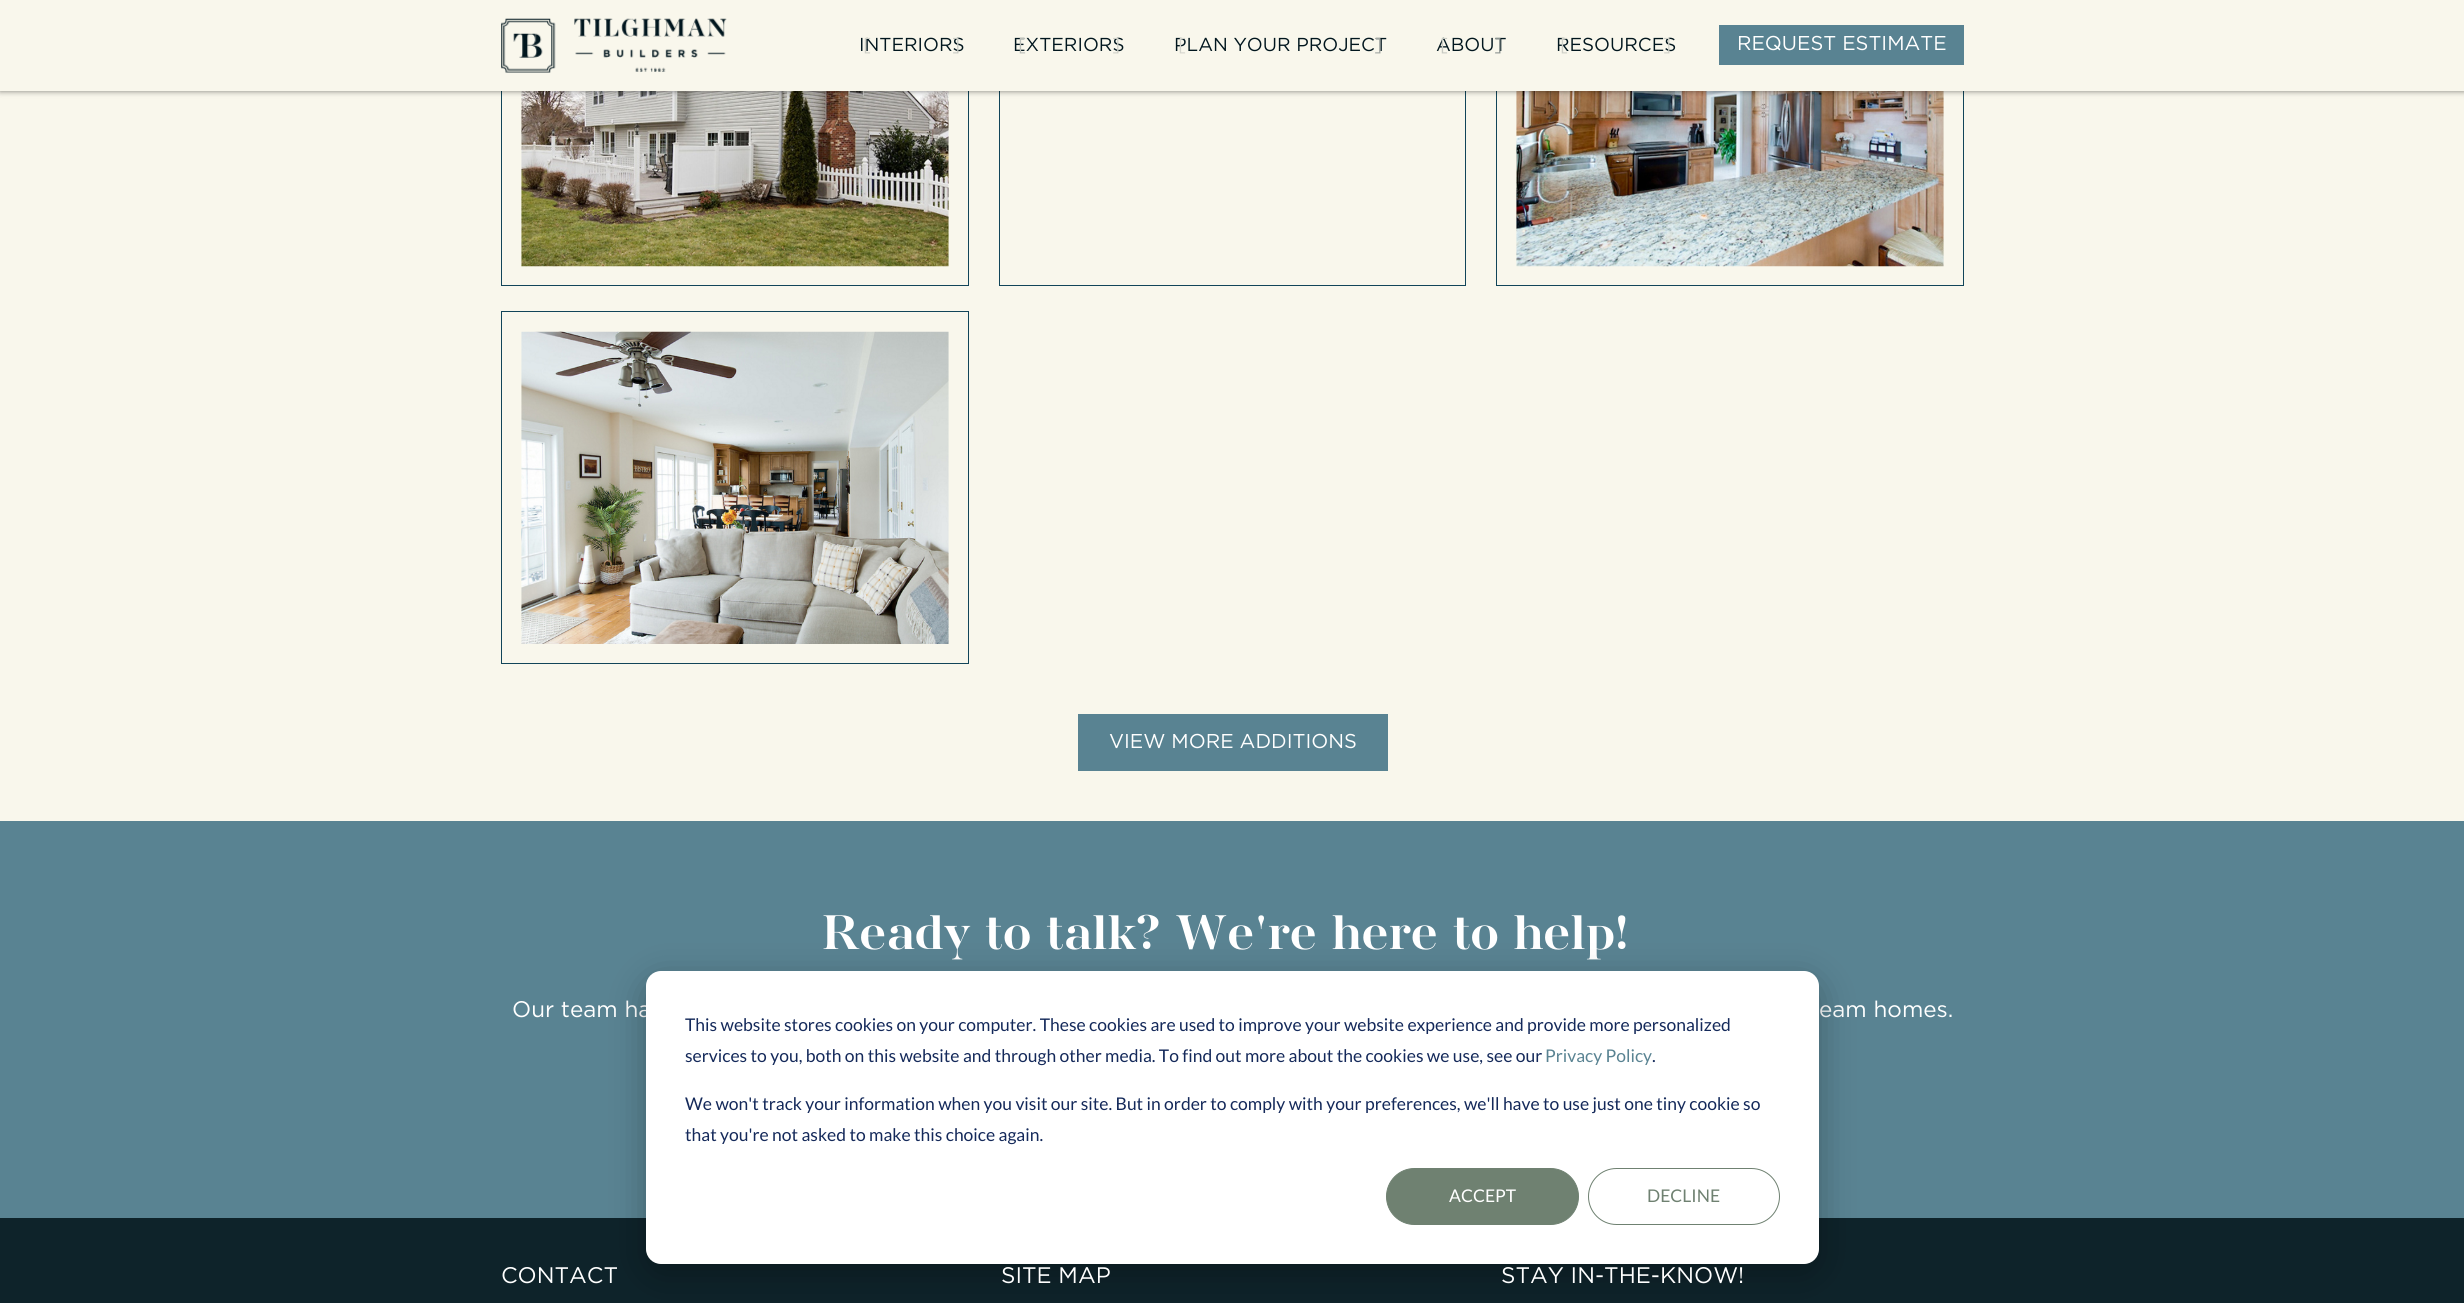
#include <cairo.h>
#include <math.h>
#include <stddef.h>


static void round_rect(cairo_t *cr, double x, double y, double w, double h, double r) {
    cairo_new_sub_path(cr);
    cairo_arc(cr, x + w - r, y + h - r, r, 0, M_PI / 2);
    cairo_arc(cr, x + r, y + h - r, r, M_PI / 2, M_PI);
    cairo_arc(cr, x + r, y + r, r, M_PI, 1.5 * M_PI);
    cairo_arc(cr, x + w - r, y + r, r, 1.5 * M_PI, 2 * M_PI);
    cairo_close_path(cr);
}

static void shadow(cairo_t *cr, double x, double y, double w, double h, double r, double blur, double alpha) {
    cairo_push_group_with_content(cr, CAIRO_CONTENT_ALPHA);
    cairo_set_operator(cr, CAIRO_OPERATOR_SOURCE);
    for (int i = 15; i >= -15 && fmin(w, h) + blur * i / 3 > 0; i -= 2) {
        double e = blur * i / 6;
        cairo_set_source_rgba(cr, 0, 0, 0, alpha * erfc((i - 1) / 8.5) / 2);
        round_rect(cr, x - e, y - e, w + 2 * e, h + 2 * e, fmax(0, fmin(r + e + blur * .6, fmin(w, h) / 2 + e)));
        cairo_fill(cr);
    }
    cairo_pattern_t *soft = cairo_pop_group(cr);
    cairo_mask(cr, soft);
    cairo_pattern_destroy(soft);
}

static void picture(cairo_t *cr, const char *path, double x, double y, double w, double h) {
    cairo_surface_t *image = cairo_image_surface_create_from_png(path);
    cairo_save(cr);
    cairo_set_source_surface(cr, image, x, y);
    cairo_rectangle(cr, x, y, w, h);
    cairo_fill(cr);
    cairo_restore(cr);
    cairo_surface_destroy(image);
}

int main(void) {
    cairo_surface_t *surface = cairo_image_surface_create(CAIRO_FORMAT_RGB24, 2464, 1303);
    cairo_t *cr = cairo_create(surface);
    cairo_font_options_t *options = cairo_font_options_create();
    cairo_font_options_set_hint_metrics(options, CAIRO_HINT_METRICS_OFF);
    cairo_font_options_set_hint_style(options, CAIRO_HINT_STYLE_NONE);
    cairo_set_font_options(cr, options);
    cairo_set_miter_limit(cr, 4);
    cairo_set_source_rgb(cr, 0.976, 0.965, 0.922);
    cairo_paint(cr);
    cairo_rectangle(cr, 501.5, -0.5, 467, 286);
    cairo_set_source_rgb(cr, 0.071, 0.271, 0.349);
    cairo_set_line_width(cr, 1);
    cairo_stroke(cr);
    picture(cr, "img2.png", 521, 91, 428, 176);
    cairo_rectangle(cr, 999.5, -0.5, 466, 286);
    cairo_stroke(cr);
    cairo_rectangle(cr, 1496.5, -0.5, 467, 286);
    cairo_stroke(cr);
    picture(cr, "img3.png", 1516, 91, 428, 176);
    cairo_set_source_rgb(cr, 0, 0, 0);
    shadow(cr, 0, 0, 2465, 91, 0, 3, 0.5);
    cairo_set_source_rgb(cr, 0.976, 0.965, 0.922);
    cairo_rectangle(cr, 0, 0, 2464, 91);
    cairo_fill(cr);
    picture(cr, "img1.png", 501, 18, 226, 55);
    cairo_select_font_face(cr, "Gotham", CAIRO_FONT_SLANT_NORMAL, CAIRO_FONT_WEIGHT_NORMAL);
    cairo_set_font_size(cr, 18.75);
    cairo_set_source_rgb(cr, 0.004, 0.086, 0.118);
    cairo_move_to(cr, 859, 51);
    cairo_show_text(cr, "INTERIORS");
    cairo_set_source_rgb(cr, 0.812, 0.816, 0.784);
    cairo_move_to(cr, 863, 51);
    cairo_show_text(cr, "[");
    cairo_set_source_rgb(cr, 0.784, 0.792, 0.765);
    cairo_move_to(cr, 952, 51);
    cairo_show_text(cr, "]");
    cairo_set_source_rgb(cr, 0.004, 0.086, 0.118);
    cairo_move_to(cr, 1013, 51);
    cairo_show_text(cr, "EXTERIORS");
    cairo_set_source_rgb(cr, 0.737, 0.749, 0.725);
    cairo_move_to(cr, 1018, 51);
    cairo_show_text(cr, "[");
    cairo_set_source_rgb(cr, 0.812, 0.816, 0.784);
    cairo_move_to(cr, 1112, 51);
    cairo_show_text(cr, "]");
    cairo_set_source_rgb(cr, 0.004, 0.086, 0.118);
    cairo_move_to(cr, 1174, 51);
    cairo_show_text(cr, "PLAN YOUR PROJECT");
    cairo_set_source_rgb(cr, 0.835, 0.835, 0.804);
    cairo_move_to(cr, 1178, 51);
    cairo_show_text(cr, "[");
    cairo_set_source_rgb(cr, 0.635, 0.655, 0.639);
    cairo_move_to(cr, 1374, 51);
    cairo_show_text(cr, "]");
    cairo_set_source_rgb(cr, 0.004, 0.086, 0.118);
    cairo_move_to(cr, 1436, 51);
    cairo_show_text(cr, "ABOUT");
    cairo_set_source_rgb(cr, 0.784, 0.792, 0.765);
    cairo_move_to(cr, 1440, 51);
    cairo_show_text(cr, "[");
    cairo_set_source_rgb(cr, 0.549, 0.58, 0.569);
    cairo_move_to(cr, 1494, 51);
    cairo_show_text(cr, "]");
    cairo_set_source_rgb(cr, 0.004, 0.086, 0.118);
    cairo_move_to(cr, 1556, 51);
    cairo_show_text(cr, "RESOURCES");
    cairo_set_source_rgb(cr, 0.812, 0.816, 0.784);
    cairo_move_to(cr, 1560, 51);
    cairo_show_text(cr, "[");
    cairo_move_to(cr, 1663, 51);
    cairo_show_text(cr, "]");
    cairo_set_source_rgb(cr, 0.349, 0.514, 0.573);
    cairo_rectangle(cr, 1719, 25, 245, 40);
    cairo_fill(cr);
    cairo_set_font_size(cr, 20);
    cairo_set_source_rgb(cr, 1, 1, 1);
    cairo_move_to(cr, 1737, 50);
    cairo_show_text(cr, "REQUEST ESTIMATE");
    cairo_rectangle(cr, 501.5, 311.5, 467, 352);
    cairo_set_source_rgb(cr, 0.071, 0.271, 0.349);
    cairo_stroke(cr);
    picture(cr, "img4.png", 521, 331, 428, 313);
    cairo_set_source_rgb(cr, 0.349, 0.514, 0.573);
    cairo_rectangle(cr, 1078, 714, 310, 57);
    cairo_fill(cr);
    cairo_set_source_rgb(cr, 1, 1, 1);
    cairo_move_to(cr, 1109, 748);
    cairo_show_text(cr, "VIEW MORE ADDITIONS");
    cairo_set_source_rgb(cr, 0.349, 0.514, 0.573);
    cairo_rectangle(cr, 0, 821, 2464, 397);
    cairo_fill(cr);
    cairo_select_font_face(cr, "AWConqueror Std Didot", CAIRO_FONT_SLANT_NORMAL, CAIRO_FONT_WEIGHT_BOLD);
    cairo_set_font_size(cr, 50);
    cairo_set_source_rgb(cr, 1, 1, 1);
    cairo_move_to(cr, 822, 949);
    cairo_show_text(cr, "Ready to talk? We're here to help!");
    cairo_select_font_face(cr, "Gotham", CAIRO_FONT_SLANT_NORMAL, CAIRO_FONT_WEIGHT_NORMAL);
    cairo_set_font_size(cr, 22.5);
    cairo_move_to(cr, 512, 1017);
    cairo_show_text(cr, "Our team ha");
    cairo_move_to(cr, 1819, 1017);
    cairo_show_text(cr, "eam homes.");
    cairo_set_source_rgb(cr, 0.055, 0.137, 0.165);
    cairo_rectangle(cr, 0, 1218, 2464, 85);
    cairo_fill(cr);
    cairo_set_source_rgb(cr, 0, 0, 0);
    shadow(cr, 646, 981, 1173, 293, 15, 17.5, 0.28);
    cairo_set_source_rgb(cr, 1, 1, 1);
    round_rect(cr, 646, 971, 1173, 293, 15);
    cairo_fill(cr);
    cairo_select_font_face(cr, "Lato", CAIRO_FONT_SLANT_NORMAL, CAIRO_FONT_WEIGHT_NORMAL);
    cairo_set_font_size(cr, 17.5);
    cairo_set_source_rgb(cr, 0.082, 0.161, 0.353);
    cairo_move_to(cr, 685, 1031);
    cairo_show_text(cr, "This website stores cookies on your computer. These cookies are used to improve your website experience and provide more personalized");
    cairo_move_to(cr, 685, 1062);
    cairo_show_text(cr, "services to you, both on this website and through other media. To find out more about the cookies we use, see our");
    cairo_set_source_rgb(cr, 0.349, 0.514, 0.573);
    cairo_move_to(cr, 1545, 1062);
    cairo_show_text(cr, "Privacy Policy");
    cairo_set_source_rgb(cr, 0.082, 0.161, 0.353);
    cairo_move_to(cr, 1652, 1062);
    cairo_show_text(cr, ".");
    cairo_move_to(cr, 685, 1110);
    cairo_show_text(cr, "We won't track your information when you visit our site. But in order to comply with your preferences, we'll have to use just one tiny cookie so");
    cairo_move_to(cr, 685, 1141);
    cairo_show_text(cr, "that you're not asked to make this choice again.");
    cairo_set_source_rgb(cr, 0.435, 0.506, 0.443);
    round_rect(cr, 1386.5, 1168.5, 192, 56, 28);
    cairo_fill_preserve(cr);
    cairo_stroke(cr);
    cairo_set_source_rgb(cr, 1, 1, 1);
    cairo_move_to(cr, 1449, 1202);
    cairo_show_text(cr, "ACCEPT");
    round_rect(cr, 1588.5, 1168.5, 191, 56, 28);
    cairo_set_source_rgb(cr, 0.435, 0.506, 0.443);
    cairo_stroke(cr);
    cairo_move_to(cr, 1647, 1202);
    cairo_show_text(cr, "DECLINE");
    cairo_select_font_face(cr, "Gotham", CAIRO_FONT_SLANT_NORMAL, CAIRO_FONT_WEIGHT_NORMAL);
    cairo_set_font_size(cr, 22.5);
    cairo_set_source_rgb(cr, 1, 1, 1);
    cairo_move_to(cr, 501, 1283);
    cairo_show_text(cr, "CONTACT");
    cairo_move_to(cr, 1001, 1283);
    cairo_show_text(cr, "SITE MAP");
    cairo_move_to(cr, 1501, 1283);
    cairo_show_text(cr, "STAY IN-THE-KNOW!");
    cairo_surface_write_to_png(surface, "page.png");
    cairo_font_options_destroy(options);
    cairo_destroy(cr);
    cairo_surface_destroy(surface);
    return 0;
}
